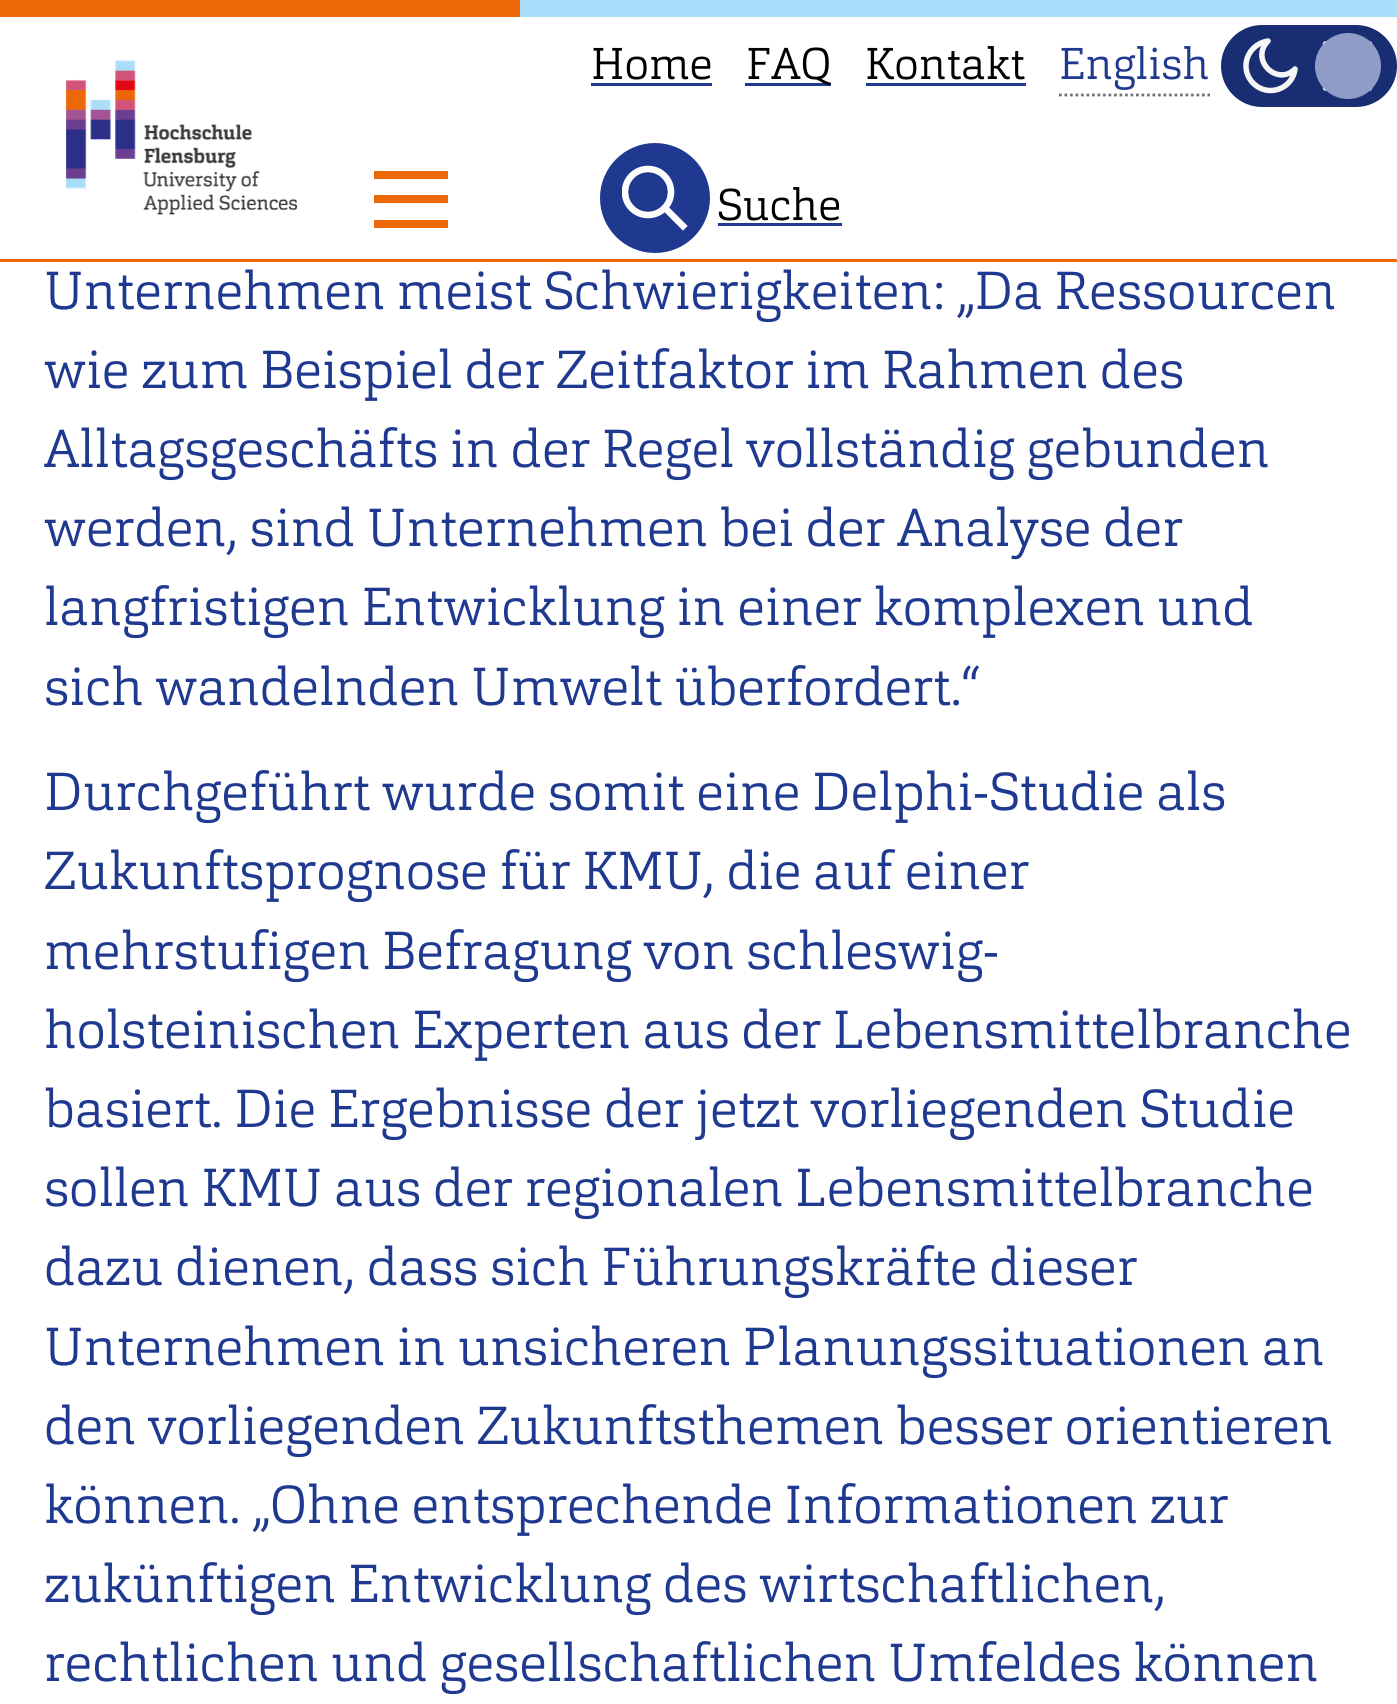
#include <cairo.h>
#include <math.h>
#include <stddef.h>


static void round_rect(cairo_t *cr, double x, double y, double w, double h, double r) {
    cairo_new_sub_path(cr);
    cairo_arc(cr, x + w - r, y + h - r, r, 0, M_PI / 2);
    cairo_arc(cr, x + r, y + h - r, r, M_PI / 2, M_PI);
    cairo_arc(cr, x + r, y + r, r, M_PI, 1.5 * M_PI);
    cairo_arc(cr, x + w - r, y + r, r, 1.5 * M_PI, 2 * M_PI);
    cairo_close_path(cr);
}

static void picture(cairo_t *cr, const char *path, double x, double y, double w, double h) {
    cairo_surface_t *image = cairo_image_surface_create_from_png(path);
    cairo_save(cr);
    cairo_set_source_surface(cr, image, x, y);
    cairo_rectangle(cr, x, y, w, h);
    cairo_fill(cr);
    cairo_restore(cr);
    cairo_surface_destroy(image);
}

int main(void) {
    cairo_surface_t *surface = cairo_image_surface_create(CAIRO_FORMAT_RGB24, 1397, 1704);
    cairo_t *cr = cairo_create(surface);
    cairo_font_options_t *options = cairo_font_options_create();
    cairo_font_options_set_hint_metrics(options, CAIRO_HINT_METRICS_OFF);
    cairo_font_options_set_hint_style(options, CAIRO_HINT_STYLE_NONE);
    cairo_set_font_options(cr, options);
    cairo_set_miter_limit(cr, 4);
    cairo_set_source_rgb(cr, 1, 1, 1);
    cairo_paint(cr);
    cairo_set_source_rgb(cr, 0.925, 0.404, 0.027);
    cairo_rectangle(cr, 0, 259, 1397, 3);
    cairo_fill(cr);
    cairo_set_source_rgb(cr, 0.667, 0.867, 0.976);
    cairo_rectangle(cr, 520, 0, 877, 17);
    cairo_fill(cr);
    cairo_set_source_rgb(cr, 0.925, 0.404, 0.027);
    cairo_rectangle(cr, 0, 0, 520, 17);
    cairo_fill(cr);
    picture(cr, "img1.png", 66, 60, 231, 155);
    cairo_select_font_face(cr, "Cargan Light", CAIRO_FONT_SLANT_NORMAL, CAIRO_FONT_WEIGHT_NORMAL);
    cairo_set_font_size(cr, 44);
    cairo_set_source_rgb(cr, 0, 0, 0);
    cairo_move_to(cr, 591, 79);
    cairo_show_text(cr, "Home");
    cairo_set_source_rgb(cr, 0.118, 0.224, 0.561);
    cairo_rectangle(cr, 591, 83, 121, 3);
    cairo_fill(cr);
    cairo_rectangle(cr, 745, 83, 86, 3);
    cairo_fill(cr);
    cairo_set_source_rgb(cr, 0, 0, 0);
    cairo_move_to(cr, 746, 79);
    cairo_show_text(cr, "FAQ");
    cairo_move_to(cr, 865, 79);
    cairo_show_text(cr, "Kontakt");
    cairo_set_source_rgb(cr, 0.118, 0.224, 0.561);
    cairo_rectangle(cr, 866, 83, 160, 3);
    cairo_fill(cr);
    cairo_move_to(cr, 1059, 79);
    cairo_show_text(cr, "English");
    cairo_new_path(cr);
    cairo_move_to(cr, 1059, 95);
    cairo_line_to(cr, 1210, 95);
    cairo_set_source_rgb(cr, 0.447, 0.447, 0.447);
    cairo_set_line_width(cr, 2.8);
    cairo_set_dash(cr, (double[]){2.75, 2.75}, 2, 0);
    cairo_stroke(cr);
    cairo_set_source_rgb(cr, 0.094, 0.176, 0.447);
    round_rect(cr, 1221, 25, 176, 82, 41);
    cairo_fill(cr);
    cairo_save(cr);
    cairo_rectangle(cr, 1315, 33, 66, 66);
    cairo_clip(cr);
    cairo_new_path(cr);
    cairo_move_to(cr, 1347.5, 36);
    cairo_line_to(cr, 1347.5, 41);
    cairo_move_to(cr, 1347.5, 91);
    cairo_line_to(cr, 1347.5, 96);
    cairo_move_to(cr, 1325.5, 44);
    cairo_line_to(cr, 1331, 49.5);
    cairo_move_to(cr, 1364, 82.5);
    cairo_line_to(cr, 1369.5, 88);
    cairo_move_to(cr, 1317, 66);
    cairo_line_to(cr, 1323, 66);
    cairo_move_to(cr, 1372, 66);
    cairo_line_to(cr, 1378, 66);
    cairo_move_to(cr, 1325.5, 88);
    cairo_line_to(cr, 1331, 82.5);
    cairo_move_to(cr, 1364, 49.5);
    cairo_line_to(cr, 1369.5, 44);
    cairo_set_source_rgb(cr, 0.961, 0.961, 0.961);
    cairo_set_line_width(cr, 5.5);
    cairo_set_line_cap(cr, CAIRO_LINE_CAP_ROUND);
    cairo_set_line_join(cr, CAIRO_LINE_JOIN_ROUND);
    cairo_set_dash(cr, NULL, 0, 0);
    cairo_stroke(cr);
    cairo_restore(cr);
    cairo_new_path(cr);
    cairo_move_to(cr, 1295, 69);
    cairo_curve_to(cr, 1293.5, 81.5, 1282.5, 91, 1269.5, 90.5);
    cairo_curve_to(cr, 1257, 90, 1246.5, 79.5, 1246, 67);
    cairo_curve_to(cr, 1245.5, 54, 1255, 43, 1268, 41);
    cairo_curve_to(cr, 1249.5, 59.5, 1277, 87, 1295, 69);
    cairo_close_path(cr);
    cairo_set_source_rgb(cr, 0.961, 0.961, 0.961);
    cairo_set_line_width(cr, 5.5);
    cairo_set_line_cap(cr, CAIRO_LINE_CAP_ROUND);
    cairo_set_line_join(cr, CAIRO_LINE_JOIN_ROUND);
    cairo_set_dash(cr, NULL, 0, 0);
    cairo_stroke(cr);
    cairo_set_source_rgb(cr, 0.561, 0.612, 0.78);
    cairo_arc(cr, 1348, 66, 33, 0, 2 * M_PI);
    cairo_fill(cr);
    cairo_set_source_rgb(cr, 0.925, 0.404, 0.027);
    cairo_rectangle(cr, 374, 195, 74, 8);
    cairo_fill(cr);
    cairo_rectangle(cr, 374, 171, 74, 8);
    cairo_fill(cr);
    cairo_rectangle(cr, 374, 220, 74, 8);
    cairo_fill(cr);
    cairo_set_source_rgb(cr, 0.118, 0.224, 0.561);
    cairo_arc(cr, 655, 198, 55, 0, 2 * M_PI);
    cairo_fill(cr);
    cairo_new_path(cr);
    cairo_move_to(cr, 683, 226);
    cairo_line_to(cr, 665, 208);
    cairo_set_source_rgb(cr, 1, 1, 1);
    cairo_set_line_width(cr, 6.6);
    cairo_set_line_cap(cr, CAIRO_LINE_CAP_SQUARE);
    cairo_set_line_join(cr, CAIRO_LINE_JOIN_MITER);
    cairo_stroke(cr);
    cairo_save(cr);
    cairo_rectangle(cr, 622, 165, 66, 66);
    cairo_clip(cr);
    cairo_arc(cr, 648, 192, 23, 0, 2 * M_PI);
    cairo_set_line_cap(cr, CAIRO_LINE_CAP_BUTT);
    cairo_stroke(cr);
    cairo_restore(cr);
    cairo_set_source_rgb(cr, 0, 0, 0);
    cairo_move_to(cr, 717, 220);
    cairo_show_text(cr, "Suche");
    cairo_set_source_rgb(cr, 0.118, 0.224, 0.561);
    cairo_rectangle(cr, 718, 223, 124, 3);
    cairo_fill(cr);
    cairo_set_font_size(cr, 52.8);
    cairo_move_to(cr, 44, 309);
    cairo_show_text(cr, "Unternehmen meist Schwierigkeiten: „Da Ressourcen");
    cairo_move_to(cr, 44, 388);
    cairo_show_text(cr, "wie zum Beispiel der Zeitfaktor im Rahmen des");
    cairo_move_to(cr, 44, 467);
    cairo_show_text(cr, "Alltagsgeschäfts in der Regel vollständig gebunden");
    cairo_move_to(cr, 44, 546);
    cairo_show_text(cr, "werden, sind Unternehmen bei der Analyse der");
    cairo_move_to(cr, 44, 625);
    cairo_show_text(cr, "langfristigen Entwicklung in einer komplexen und");
    cairo_move_to(cr, 44, 705);
    cairo_show_text(cr, "sich wandelnden Umwelt überfordert.“");
    cairo_move_to(cr, 44, 810);
    cairo_show_text(cr, "Durchgeführt wurde somit eine Delphi-Studie als");
    cairo_move_to(cr, 44, 889);
    cairo_show_text(cr, "Zukunftsprognose für KMU, die auf einer");
    cairo_move_to(cr, 44, 969);
    cairo_show_text(cr, "mehrstufigen Befragung von schleswig-");
    cairo_move_to(cr, 44, 1048);
    cairo_show_text(cr, "holsteinischen Experten aus der Lebensmittelbranche");
    cairo_move_to(cr, 44, 1127);
    cairo_show_text(cr, "basiert. Die Ergebnisse der jetzt vorliegenden Studie");
    cairo_move_to(cr, 44, 1206);
    cairo_show_text(cr, "sollen KMU aus der regionalen Lebensmittelbranche");
    cairo_move_to(cr, 44, 1285);
    cairo_show_text(cr, "dazu dienen, dass sich Führungskräfte dieser");
    cairo_move_to(cr, 44, 1365);
    cairo_show_text(cr, "Unternehmen in unsicheren Planungssituationen an");
    cairo_move_to(cr, 44, 1444);
    cairo_show_text(cr, "den vorliegenden Zukunftsthemen besser orientieren");
    cairo_move_to(cr, 44, 1523);
    cairo_show_text(cr, "können. „Ohne entsprechende Informationen zur");
    cairo_move_to(cr, 44, 1602);
    cairo_show_text(cr, "zukünftigen Entwicklung des wirtschaftlichen,");
    cairo_move_to(cr, 44, 1681);
    cairo_show_text(cr, "rechtlichen und gesellschaftlichen Umfeldes können");
    cairo_surface_write_to_png(surface, "page.png");
    cairo_font_options_destroy(options);
    cairo_destroy(cr);
    cairo_surface_destroy(surface);
    return 0;
}
